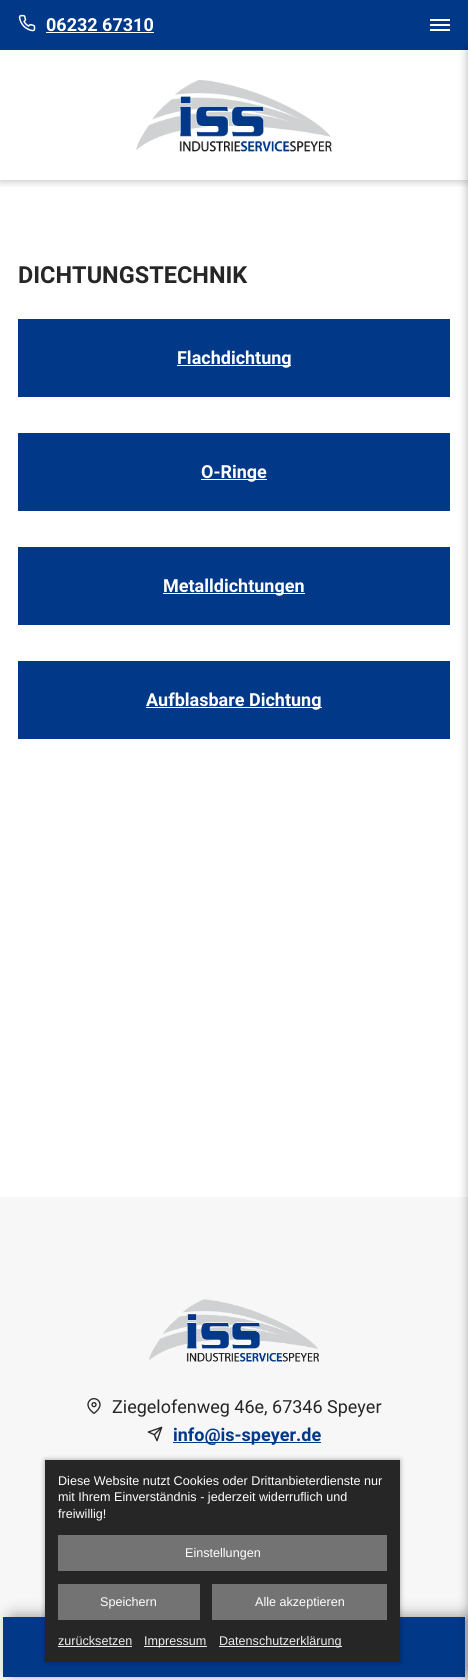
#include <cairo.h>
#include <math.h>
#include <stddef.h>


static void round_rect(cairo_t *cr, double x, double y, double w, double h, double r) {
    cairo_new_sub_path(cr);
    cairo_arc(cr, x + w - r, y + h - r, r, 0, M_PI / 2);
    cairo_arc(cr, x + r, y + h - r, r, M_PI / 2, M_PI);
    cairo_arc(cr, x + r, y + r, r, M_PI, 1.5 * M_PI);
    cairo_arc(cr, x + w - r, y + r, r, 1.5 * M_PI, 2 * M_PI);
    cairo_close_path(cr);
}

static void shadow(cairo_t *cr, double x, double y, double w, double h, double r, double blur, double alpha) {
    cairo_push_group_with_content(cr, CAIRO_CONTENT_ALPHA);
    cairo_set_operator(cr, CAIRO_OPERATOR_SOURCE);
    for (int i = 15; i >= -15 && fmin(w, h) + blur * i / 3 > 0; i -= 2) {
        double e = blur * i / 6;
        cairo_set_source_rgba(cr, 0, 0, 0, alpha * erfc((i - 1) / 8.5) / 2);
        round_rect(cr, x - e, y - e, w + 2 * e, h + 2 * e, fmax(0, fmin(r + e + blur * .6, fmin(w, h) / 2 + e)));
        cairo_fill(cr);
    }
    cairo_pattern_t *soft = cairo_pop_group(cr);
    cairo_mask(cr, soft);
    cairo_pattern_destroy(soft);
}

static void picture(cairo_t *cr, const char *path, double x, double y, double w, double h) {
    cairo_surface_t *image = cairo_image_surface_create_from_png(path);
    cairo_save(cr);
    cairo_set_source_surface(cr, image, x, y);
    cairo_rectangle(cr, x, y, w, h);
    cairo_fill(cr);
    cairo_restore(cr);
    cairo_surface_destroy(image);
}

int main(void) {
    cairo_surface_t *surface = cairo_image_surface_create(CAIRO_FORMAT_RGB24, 468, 1680);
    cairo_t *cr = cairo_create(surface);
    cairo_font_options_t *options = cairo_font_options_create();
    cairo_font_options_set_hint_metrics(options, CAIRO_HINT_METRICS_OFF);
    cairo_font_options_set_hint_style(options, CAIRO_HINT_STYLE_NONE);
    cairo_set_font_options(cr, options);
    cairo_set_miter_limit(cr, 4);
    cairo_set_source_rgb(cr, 1, 1, 1);
    cairo_paint(cr);
    cairo_save(cr);
    cairo_rectangle(cr, 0, 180, 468, 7);
    cairo_clip(cr);
    cairo_set_source_rgb(cr, 0, 0, 0);
    shadow(cr, 0, 50, 468, 130, 0, 5, 0.3);
    cairo_restore(cr);
    cairo_set_source_rgb(cr, 0.004, 0.22, 0.533);
    cairo_rectangle(cr, 0, 0, 468, 50);
    cairo_fill(cr);
    picture(cr, "img1.png", 18, 14, 18, 18);
    cairo_select_font_face(cr, "Roboto", CAIRO_FONT_SLANT_NORMAL, CAIRO_FONT_WEIGHT_BOLD);
    cairo_set_font_size(cr, 18);
    cairo_set_source_rgb(cr, 1, 1, 1);
    cairo_move_to(cr, 46, 31);
    cairo_show_text(cr, "06232 67310");
    cairo_rectangle(cr, 46, 32, 108, 1);
    cairo_fill(cr);
    cairo_rectangle(cr, 430, 24, 20, 2);
    cairo_fill(cr);
    cairo_rectangle(cr, 430, 19, 20, 2);
    cairo_fill(cr);
    cairo_rectangle(cr, 430, 29, 20, 2);
    cairo_fill(cr);
    picture(cr, "img2.png", 136, 80, 196, 72);
    cairo_set_font_size(cr, 23.5);
    cairo_set_source_rgb(cr, 0.149, 0.149, 0.149);
    cairo_move_to(cr, 18, 283);
    cairo_show_text(cr, "DICHTUNGSTECHNIK");
    cairo_set_source_rgb(cr, 0.004, 0.22, 0.533);
    cairo_rectangle(cr, 18, 319, 432, 78);
    cairo_fill(cr);
    cairo_set_source_rgb(cr, 1, 1, 1);
    cairo_rectangle(cr, 177, 365, 114, 1);
    cairo_fill(cr);
    cairo_set_font_size(cr, 18);
    cairo_move_to(cr, 177, 364);
    cairo_show_text(cr, "Flachdichtung");
    cairo_set_source_rgb(cr, 0.004, 0.22, 0.533);
    cairo_rectangle(cr, 18, 433, 432, 78);
    cairo_fill(cr);
    cairo_set_source_rgb(cr, 1, 1, 1);
    cairo_rectangle(cr, 201, 479, 66, 1);
    cairo_fill(cr);
    cairo_move_to(cr, 201, 478);
    cairo_show_text(cr, "O-Ringe");
    cairo_set_source_rgb(cr, 0.004, 0.22, 0.533);
    cairo_rectangle(cr, 18, 547, 432, 78);
    cairo_fill(cr);
    cairo_set_source_rgb(cr, 1, 1, 1);
    cairo_rectangle(cr, 163, 593, 142, 1);
    cairo_fill(cr);
    cairo_move_to(cr, 163, 592);
    cairo_show_text(cr, "Metalldichtungen");
    cairo_set_source_rgb(cr, 0.004, 0.22, 0.533);
    cairo_rectangle(cr, 18, 661, 432, 78);
    cairo_fill(cr);
    cairo_set_source_rgb(cr, 1, 1, 1);
    cairo_rectangle(cr, 146, 707, 176, 1);
    cairo_fill(cr);
    cairo_move_to(cr, 146, 706);
    cairo_show_text(cr, "Aufblasbare Dichtung");
    cairo_set_source_rgb(cr, 0.965, 0.965, 0.965);
    cairo_rectangle(cr, 0, 1197, 468, 483);
    cairo_fill(cr);
    picture(cr, "img3.png", 149, 1299, 170, 63);
    picture(cr, "img4.png", 87, 1398, 14, 16);
    cairo_select_font_face(cr, "Roboto", CAIRO_FONT_SLANT_NORMAL, CAIRO_FONT_WEIGHT_NORMAL);
    cairo_set_source_rgb(cr, 0.149, 0.149, 0.149);
    cairo_move_to(cr, 112, 1413);
    cairo_show_text(cr, "Ziegelofenweg 46e, 67346 Speyer");
    picture(cr, "img5.png", 147, 1426, 16, 16);
    cairo_set_source_rgb(cr, 0.004, 0.22, 0.533);
    cairo_rectangle(cr, 173, 1442, 148, 1);
    cairo_fill(cr);
    cairo_select_font_face(cr, "Roboto", CAIRO_FONT_SLANT_NORMAL, CAIRO_FONT_WEIGHT_BOLD);
    cairo_move_to(cr, 173, 1441);
    cairo_show_text(cr, "info@is-speyer.de");
    cairo_set_source_rgb(cr, 0, 0, 0);
    shadow(cr, 9, 1615, 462, 60, 5, 7.5, 0.35);
    cairo_set_source_rgb(cr, 0.004, 0.22, 0.533);
    cairo_rectangle(cr, 311, 1617, 154, 60);
    cairo_fill(cr);
    cairo_set_source_rgb(cr, 0, 0, 0);
    shadow(cr, 468, 50, 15, 1630, 0, 5, 0.3);
    cairo_set_source_rgb(cr, 0.004, 0.22, 0.533);
    cairo_rectangle(cr, 3, 1617, 154, 60);
    cairo_fill(cr);
    cairo_rectangle(cr, 157, 1662, 154, 15);
    cairo_fill(cr);
    cairo_set_source_rgb(cr, 0, 0, 0);
    shadow(cr, 45, 1460, 355, 202, 0, 2.5, 0.35);
    cairo_set_source_rgb(cr, 0.149, 0.149, 0.149);
    cairo_rectangle(cr, 45, 1460, 355, 202);
    cairo_fill(cr);
    cairo_select_font_face(cr, "Liberation Sans", CAIRO_FONT_SLANT_NORMAL, CAIRO_FONT_WEIGHT_NORMAL);
    cairo_set_font_size(cr, 12.6);
    cairo_set_source_rgb(cr, 1, 1, 1);
    cairo_move_to(cr, 58, 1485);
    cairo_show_text(cr, "Diese Website nutzt Cookies oder Drittanbieterdienste nur");
    cairo_move_to(cr, 58, 1501);
    cairo_show_text(cr, "mit Ihrem Einverständnis - jederzeit widerruflich und");
    cairo_move_to(cr, 58, 1518);
    cairo_show_text(cr, "freiwillig!");
    cairo_set_source_rgb(cr, 0.451, 0.451, 0.451);
    cairo_rectangle(cr, 58, 1535, 329, 36);
    cairo_fill(cr);
    cairo_set_source_rgb(cr, 1, 1, 1);
    cairo_move_to(cr, 185, 1557);
    cairo_show_text(cr, "Einstellungen");
    cairo_set_source_rgb(cr, 0.451, 0.451, 0.451);
    cairo_rectangle(cr, 58, 1584, 142, 36);
    cairo_fill(cr);
    cairo_set_source_rgb(cr, 1, 1, 1);
    cairo_move_to(cr, 100, 1606);
    cairo_show_text(cr, "Speichern");
    cairo_set_source_rgb(cr, 0.451, 0.451, 0.451);
    cairo_rectangle(cr, 212, 1584, 175, 36);
    cairo_fill(cr);
    cairo_set_source_rgb(cr, 1, 1, 1);
    cairo_move_to(cr, 255, 1606);
    cairo_show_text(cr, "Alle akzeptieren");
    cairo_set_source_rgb(cr, 0.933, 0.933, 0.933);
    cairo_move_to(cr, 58, 1645);
    cairo_show_text(cr, "zurücksetzen");
    cairo_rectangle(cr, 58, 1646, 74, 1);
    cairo_fill(cr);
    cairo_rectangle(cr, 144, 1646, 63, 1);
    cairo_fill(cr);
    cairo_move_to(cr, 144, 1645);
    cairo_show_text(cr, "Impressum");
    cairo_rectangle(cr, 219, 1646, 123, 1);
    cairo_fill(cr);
    cairo_move_to(cr, 219, 1645);
    cairo_show_text(cr, "Datenschutzerklärung");
    cairo_surface_write_to_png(surface, "page.png");
    cairo_font_options_destroy(options);
    cairo_destroy(cr);
    cairo_surface_destroy(surface);
    return 0;
}
